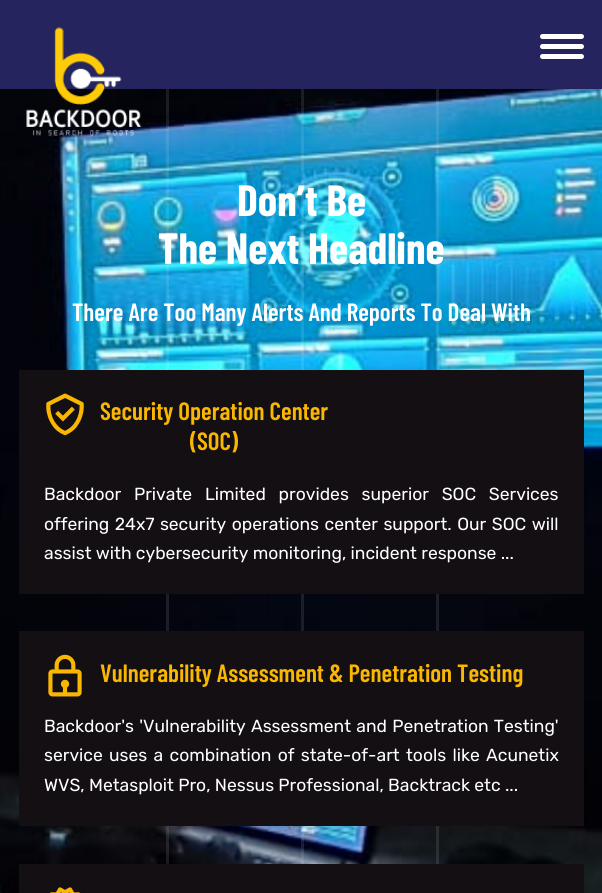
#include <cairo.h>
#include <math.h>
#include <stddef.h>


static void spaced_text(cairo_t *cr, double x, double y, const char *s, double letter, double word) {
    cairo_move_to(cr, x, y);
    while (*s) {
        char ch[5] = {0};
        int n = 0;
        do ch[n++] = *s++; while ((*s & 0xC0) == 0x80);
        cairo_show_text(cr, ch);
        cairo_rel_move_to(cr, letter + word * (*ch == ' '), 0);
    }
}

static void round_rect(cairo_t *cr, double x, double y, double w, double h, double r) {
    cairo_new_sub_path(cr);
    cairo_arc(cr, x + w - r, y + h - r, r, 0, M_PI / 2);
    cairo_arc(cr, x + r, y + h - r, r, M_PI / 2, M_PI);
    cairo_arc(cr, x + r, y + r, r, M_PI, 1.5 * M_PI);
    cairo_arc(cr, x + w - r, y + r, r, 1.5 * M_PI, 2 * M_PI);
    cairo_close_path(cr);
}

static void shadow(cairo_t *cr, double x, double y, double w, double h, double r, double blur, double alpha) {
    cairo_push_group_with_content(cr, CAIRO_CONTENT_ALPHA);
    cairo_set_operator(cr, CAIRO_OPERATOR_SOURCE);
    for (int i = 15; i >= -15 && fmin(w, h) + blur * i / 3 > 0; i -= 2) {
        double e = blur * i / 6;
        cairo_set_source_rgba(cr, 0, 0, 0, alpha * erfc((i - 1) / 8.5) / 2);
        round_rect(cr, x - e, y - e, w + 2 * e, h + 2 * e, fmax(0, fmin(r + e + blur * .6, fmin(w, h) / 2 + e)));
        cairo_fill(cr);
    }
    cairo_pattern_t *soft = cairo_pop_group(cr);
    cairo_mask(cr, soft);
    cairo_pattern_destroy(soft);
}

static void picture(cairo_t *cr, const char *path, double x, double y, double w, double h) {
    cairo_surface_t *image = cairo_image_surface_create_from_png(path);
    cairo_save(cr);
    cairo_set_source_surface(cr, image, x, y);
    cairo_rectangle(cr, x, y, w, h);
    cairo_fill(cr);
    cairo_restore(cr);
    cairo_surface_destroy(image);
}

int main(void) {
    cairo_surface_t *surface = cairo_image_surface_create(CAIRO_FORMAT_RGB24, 602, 893);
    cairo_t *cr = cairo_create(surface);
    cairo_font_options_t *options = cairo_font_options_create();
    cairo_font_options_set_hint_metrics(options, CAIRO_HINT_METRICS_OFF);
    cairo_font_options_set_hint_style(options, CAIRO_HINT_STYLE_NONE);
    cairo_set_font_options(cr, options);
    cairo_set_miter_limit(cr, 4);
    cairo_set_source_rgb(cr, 1, 1, 1);
    cairo_paint(cr);
    picture(cr, "img2.png", 0, 89, 602, 804);
    cairo_set_source_rgba(cr, 1, 1, 1, 0.1);
    cairo_rectangle(cr, 166, 89, 3, 775);
    cairo_fill(cr);
    cairo_rectangle(cr, 301, 89, 3, 775);
    cairo_fill(cr);
    cairo_rectangle(cr, 436, 89, 3, 775);
    cairo_fill(cr);
    cairo_set_source_rgb(cr, 0, 0, 0);
    shadow(cr, -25, 0, 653, 139, 0, 12.5, 0.05);
    cairo_set_source_rgb(cr, 0.145, 0.141, 0.369);
    cairo_rectangle(cr, 0, 0, 602, 88);
    cairo_fill(cr);
    cairo_set_source_rgb(cr, 0.141, 0.137, 0.357);
    cairo_rectangle(cr, 0, 88, 602, 1);
    cairo_fill(cr);
    cairo_set_source_rgb(cr, 1, 1, 1);
    round_rect(cr, 540, 34, 44, 5, 2.5);
    cairo_fill(cr);
    round_rect(cr, 540, 44, 44, 5, 2.5);
    cairo_fill(cr);
    round_rect(cr, 540, 54, 44, 5, 2.5);
    cairo_fill(cr);
    picture(cr, "img1.png", 26, 27, 116, 109);
    cairo_select_font_face(cr, "Barlow Condensed", CAIRO_FONT_SLANT_NORMAL, CAIRO_FONT_WEIGHT_BOLD);
    cairo_set_font_size(cr, 43.75);
    cairo_move_to(cr, 237, 216);
    cairo_show_text(cr, "Don’t Be");
    cairo_move_to(cr, 158, 264);
    cairo_show_text(cr, "The Next Headline");
    cairo_select_font_face(cr, "Barlow Condensed SemiBold", CAIRO_FONT_SLANT_NORMAL, CAIRO_FONT_WEIGHT_NORMAL);
    cairo_set_font_size(cr, 25);
    cairo_move_to(cr, 72, 321);
    cairo_show_text(cr, "There Are Too Many Alerts And Reports To Deal With");
    cairo_set_source_rgb(cr, 0.078, 0.059, 0.078);
    cairo_rectangle(cr, 19, 370, 565, 224);
    cairo_fill(cr);
    picture(cr, "img3.png", 46, 393, 38, 43);
    cairo_set_source_rgb(cr, 0.98, 0.718, 0.004);
    cairo_move_to(cr, 100, 420);
    cairo_show_text(cr, "Security Operation Center");
    cairo_move_to(cr, 190, 450);
    cairo_show_text(cr, "(SOC)");
    cairo_select_font_face(cr, "Rubik", CAIRO_FONT_SLANT_NORMAL, CAIRO_FONT_WEIGHT_NORMAL);
    cairo_set_font_size(cr, 17.5);
    cairo_set_source_rgb(cr, 1, 1, 1);
    spaced_text(cr, 44, 500, "Backdoor Private Limited provides superior SOC Services", 0, 8.5);
    spaced_text(cr, 44, 530, "offering 24x7 security operations center support. Our SOC will", 0, 1.25);
    cairo_move_to(cr, 44, 559);
    cairo_show_text(cr, "assist with cybersecurity monitoring, incident response ...");
    cairo_set_source_rgb(cr, 0.078, 0.059, 0.078);
    cairo_rectangle(cr, 19, 631, 565, 195);
    cairo_fill(cr);
    picture(cr, "img4.png", 48, 654, 34, 43);
    cairo_select_font_face(cr, "Barlow Condensed SemiBold", CAIRO_FONT_SLANT_NORMAL, CAIRO_FONT_WEIGHT_NORMAL);
    cairo_set_font_size(cr, 25);
    cairo_set_source_rgb(cr, 0.98, 0.718, 0.004);
    cairo_move_to(cr, 100, 682);
    cairo_show_text(cr, "Vulnerability Assessment & Penetration Testing");
    cairo_select_font_face(cr, "Rubik", CAIRO_FONT_SLANT_NORMAL, CAIRO_FONT_WEIGHT_NORMAL);
    cairo_set_font_size(cr, 17.5);
    cairo_set_source_rgb(cr, 1, 1, 1);
    spaced_text(cr, 44, 732, "Backdoor's 'Vulnerability Assessment and Penetration Testing'", 0, 1);
    spaced_text(cr, 44, 761, "service uses a combination of state-of-art tools like Acunetix", 0, 2);
    cairo_move_to(cr, 44, 791);
    cairo_show_text(cr, "WVS, Metasploit Pro, Nessus Professional, Backtrack etc ...");
    cairo_set_source_rgb(cr, 0.078, 0.059, 0.078);
    cairo_rectangle(cr, 19, 864, 565, 29);
    cairo_fill(cr);
    picture(cr, "img5.png", 50, 887, 31, 6);
    cairo_surface_write_to_png(surface, "page.png");
    cairo_font_options_destroy(options);
    cairo_destroy(cr);
    cairo_surface_destroy(surface);
    return 0;
}
